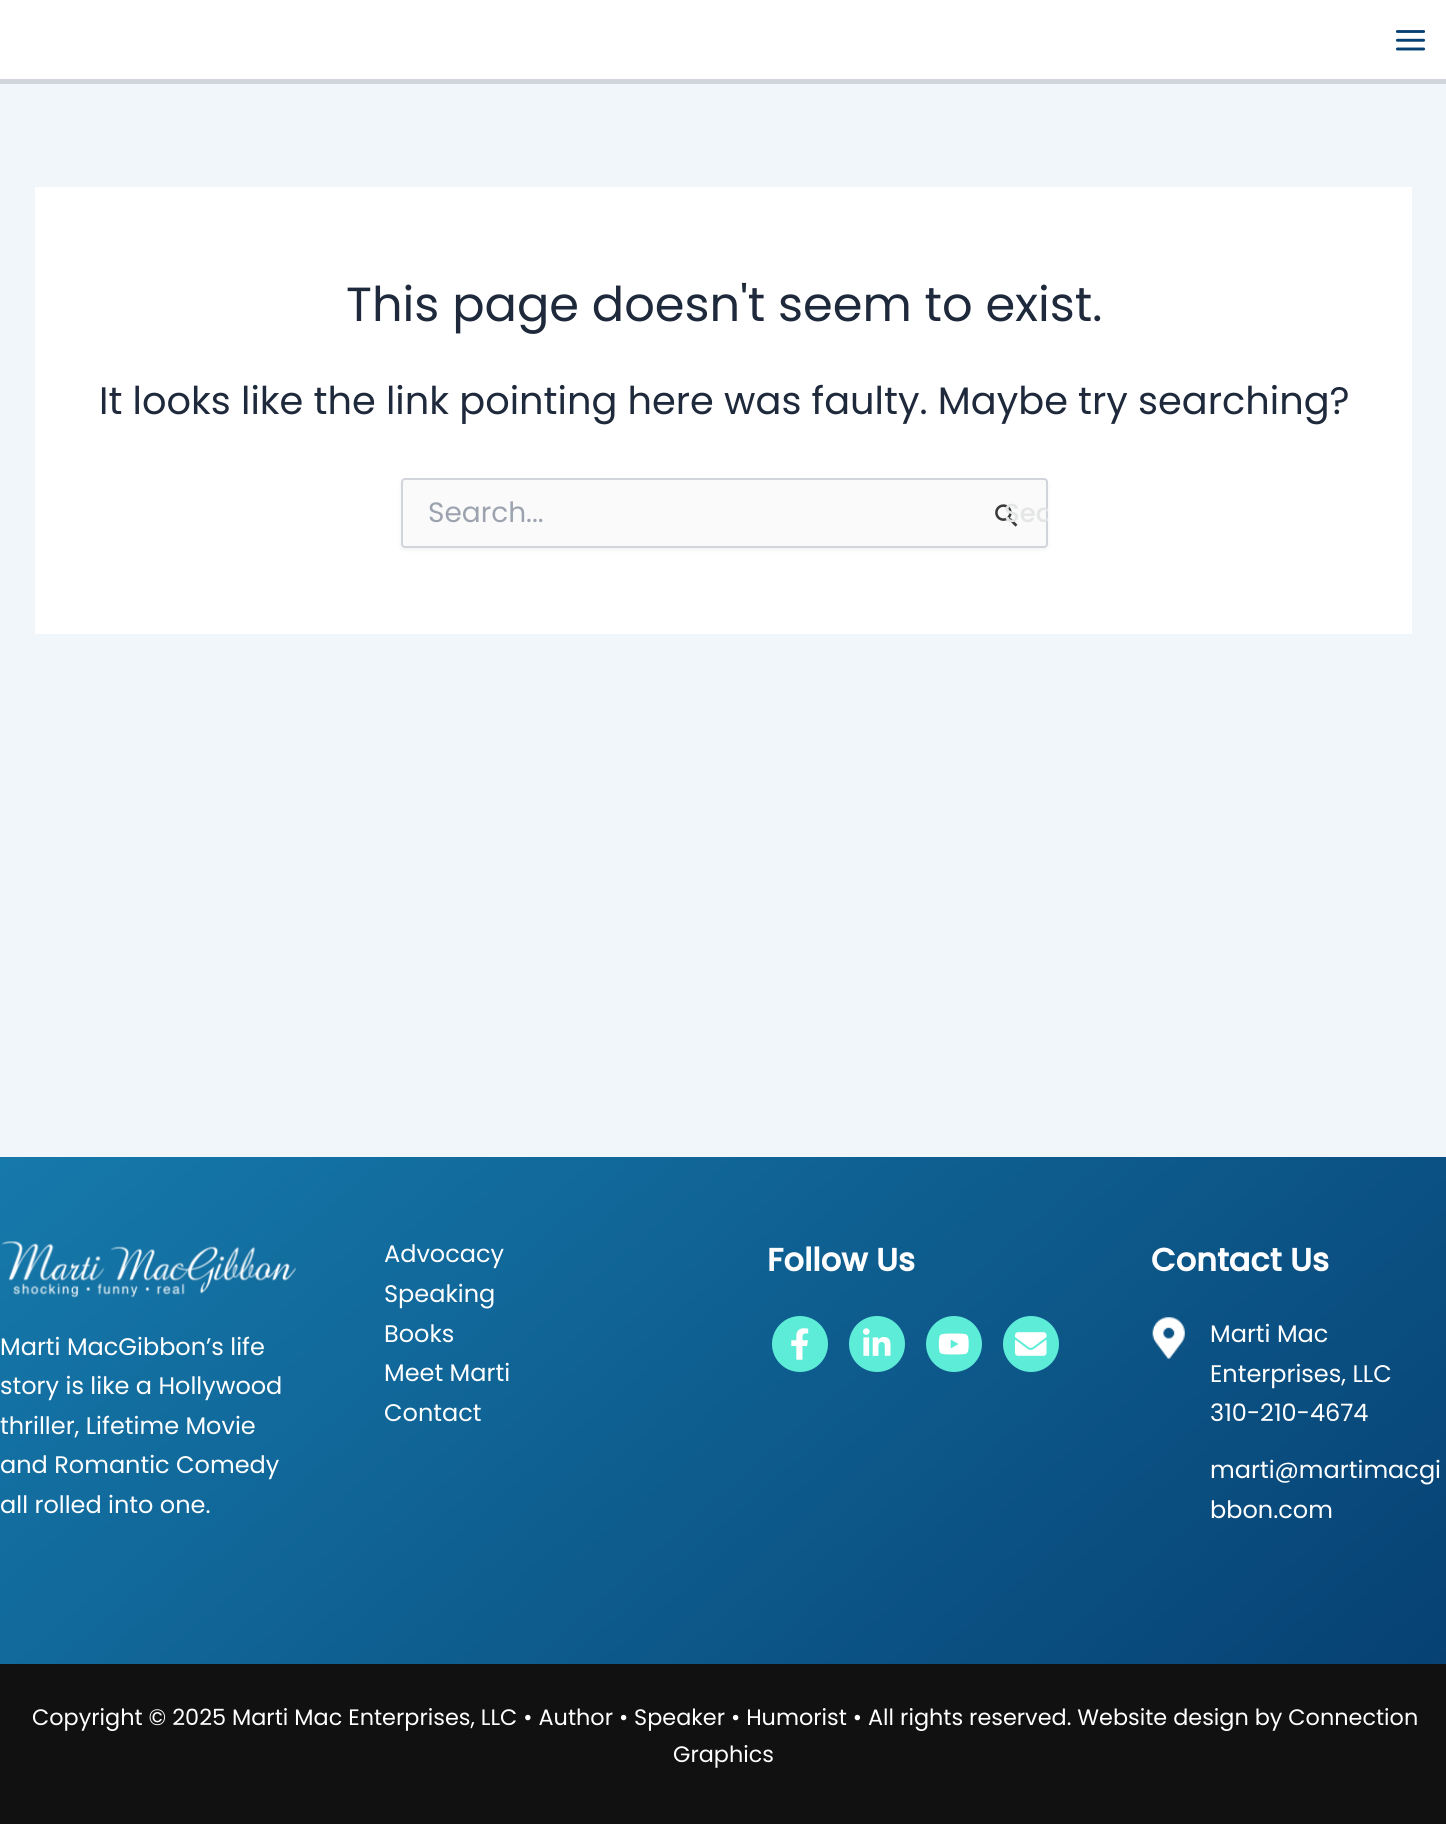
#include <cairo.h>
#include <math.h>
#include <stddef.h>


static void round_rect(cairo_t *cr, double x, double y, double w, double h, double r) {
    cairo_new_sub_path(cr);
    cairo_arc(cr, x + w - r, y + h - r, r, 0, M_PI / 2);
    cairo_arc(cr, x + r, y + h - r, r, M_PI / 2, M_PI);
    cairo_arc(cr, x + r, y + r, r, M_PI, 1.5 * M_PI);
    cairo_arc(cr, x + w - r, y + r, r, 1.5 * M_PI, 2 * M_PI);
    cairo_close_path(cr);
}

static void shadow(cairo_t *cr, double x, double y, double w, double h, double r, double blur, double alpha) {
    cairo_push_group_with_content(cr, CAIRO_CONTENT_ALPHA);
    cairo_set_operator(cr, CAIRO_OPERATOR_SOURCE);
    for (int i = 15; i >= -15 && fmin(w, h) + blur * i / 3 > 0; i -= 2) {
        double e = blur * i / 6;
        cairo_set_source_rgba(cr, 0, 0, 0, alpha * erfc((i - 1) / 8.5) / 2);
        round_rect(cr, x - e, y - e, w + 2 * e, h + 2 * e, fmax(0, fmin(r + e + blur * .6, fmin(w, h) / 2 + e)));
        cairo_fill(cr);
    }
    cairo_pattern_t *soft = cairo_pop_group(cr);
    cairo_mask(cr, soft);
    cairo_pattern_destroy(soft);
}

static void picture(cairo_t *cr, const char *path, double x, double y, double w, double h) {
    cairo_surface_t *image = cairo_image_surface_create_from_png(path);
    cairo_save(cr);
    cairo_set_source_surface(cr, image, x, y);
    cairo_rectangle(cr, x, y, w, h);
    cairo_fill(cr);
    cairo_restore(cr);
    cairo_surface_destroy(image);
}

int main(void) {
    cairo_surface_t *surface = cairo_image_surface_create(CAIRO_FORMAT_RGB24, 1446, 1824);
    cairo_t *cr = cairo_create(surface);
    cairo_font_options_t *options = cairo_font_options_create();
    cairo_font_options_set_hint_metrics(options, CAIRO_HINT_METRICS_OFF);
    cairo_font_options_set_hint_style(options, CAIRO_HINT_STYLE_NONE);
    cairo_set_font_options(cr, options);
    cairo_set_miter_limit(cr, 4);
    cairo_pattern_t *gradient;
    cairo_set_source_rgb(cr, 0.941, 0.961, 0.98);
    cairo_paint(cr);
    cairo_set_source_rgb(cr, 1, 1, 1);
    cairo_rectangle(cr, 0, 0, 1446, 79);
    cairo_fill(cr);
    cairo_set_source_rgb(cr, 0.82, 0.835, 0.859);
    cairo_rectangle(cr, 0, 79, 1446, 5);
    cairo_fill(cr);
    picture(cr, "img1.png", 1395, 30, 31, 21);
    cairo_set_source_rgb(cr, 1, 1, 1);
    cairo_rectangle(cr, 35, 187, 1377, 447);
    cairo_fill(cr);
    cairo_select_font_face(cr, "Poppins", CAIRO_FONT_SLANT_NORMAL, CAIRO_FONT_WEIGHT_NORMAL);
    cairo_set_font_size(cr, 47.9);
    cairo_set_source_rgb(cr, 0.118, 0.161, 0.231);
    cairo_move_to(cr, 346, 321);
    cairo_show_text(cr, "This page doesn't seem to exist.");
    cairo_set_font_size(cr, 38.3);
    cairo_move_to(cr, 99, 414);
    cairo_show_text(cr, "It looks like the link pointing here was faulty. Maybe try searching?");
    cairo_set_source_rgb(cr, 0, 0, 0);
    shadow(cr, 401, 480, 647, 70, 4, 2, 0.05);
    cairo_set_source_rgb(cr, 0.98, 0.98, 0.98);
    round_rect(cr, 402, 479, 645, 68, 3);
    cairo_fill_preserve(cr);
    cairo_set_source_rgb(cr, 0.82, 0.835, 0.859);
    cairo_stroke(cr);
    cairo_set_font_size(cr, 28);
    cairo_set_source_rgb(cr, 0.612, 0.639, 0.686);
    cairo_move_to(cr, 428, 522);
    cairo_show_text(cr, "Search...");
    picture(cr, "img2.png", 995, 504, 23, 23);
    cairo_save(cr);
    round_rect(cr, 970, 478, 78, 72, 4);
    cairo_clip(cr);
    cairo_select_font_face(cr, "Poppins Medium", CAIRO_FONT_SLANT_NORMAL, CAIRO_FONT_WEIGHT_NORMAL);
    cairo_set_font_size(cr, 26);
    cairo_set_source_rgb(cr, 0.894, 0.898, 0.898);
    cairo_move_to(cr, 1004, 522);
    cairo_show_text(cr, "Sea");
    cairo_restore(cr);
    gradient = cairo_pattern_create_linear(1161, 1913, 287, 908);
    cairo_pattern_add_color_stop_rgba(gradient, 0, 0.027, 0.255, 0.451, 1);
    cairo_pattern_add_color_stop_rgba(gradient, 1, 0.086, 0.475, 0.671, 1);
    cairo_set_source(cr, gradient);
    cairo_pattern_destroy(gradient);
    cairo_rectangle(cr, 0, 1157, 1446, 507);
    cairo_fill(cr);
    picture(cr, "img3.png", 2, 1241, 294, 57);
    cairo_set_font_size(cr, 24);
    cairo_set_source_rgb(cr, 1, 1, 1);
    cairo_move_to(cr, 0, 1355);
    cairo_show_text(cr, "Marti MacGibbon’s life");
    cairo_move_to(cr, 0, 1394);
    cairo_show_text(cr, "story is like a Hollywood");
    cairo_move_to(cr, 0, 1434);
    cairo_show_text(cr, "thriller, Lifetime Movie");
    cairo_move_to(cr, 0, 1473);
    cairo_show_text(cr, "and Romantic Comedy");
    cairo_move_to(cr, 0, 1513);
    cairo_show_text(cr, "all rolled into one.");
    cairo_move_to(cr, 384, 1262);
    cairo_show_text(cr, "Advocacy");
    cairo_move_to(cr, 384, 1302);
    cairo_show_text(cr, "Speaking");
    cairo_move_to(cr, 384, 1342);
    cairo_show_text(cr, "Books");
    cairo_move_to(cr, 384, 1381);
    cairo_show_text(cr, "Meet Marti");
    cairo_move_to(cr, 384, 1421);
    cairo_show_text(cr, "Contact");
    cairo_select_font_face(cr, "Poppins", CAIRO_FONT_SLANT_NORMAL, CAIRO_FONT_WEIGHT_BOLD);
    cairo_set_font_size(cr, 32);
    cairo_move_to(cr, 767, 1271);
    cairo_show_text(cr, "Follow Us");
    cairo_set_source_rgb(cr, 0.365, 0.922, 0.843);
    cairo_new_path(cr);
    cairo_arc(cr, 800, 1344, 28, 0, 2 * M_PI);
    cairo_fill(cr);
    picture(cr, "img4.png", 791, 1328, 18, 32);
    cairo_arc(cr, 877, 1344, 28, 0, 2 * M_PI);
    cairo_fill(cr);
    picture(cr, "img5.png", 863, 1328, 28, 28);
    cairo_arc(cr, 954, 1344, 28, 0, 2 * M_PI);
    cairo_fill(cr);
    picture(cr, "img6.png", 938, 1333, 31, 22);
    cairo_arc(cr, 1031, 1344, 28, 0, 2 * M_PI);
    cairo_fill(cr);
    picture(cr, "img7.png", 1015, 1332, 32, 24);
    cairo_set_source_rgb(cr, 1, 1, 1);
    cairo_move_to(cr, 1151, 1271);
    cairo_show_text(cr, "Contact Us");
    picture(cr, "img8.png", 1152, 1317, 33, 42);
    cairo_select_font_face(cr, "Poppins", CAIRO_FONT_SLANT_NORMAL, CAIRO_FONT_WEIGHT_NORMAL);
    cairo_set_font_size(cr, 24);
    cairo_move_to(cr, 1210, 1342);
    cairo_show_text(cr, "Marti Mac");
    cairo_move_to(cr, 1210, 1382);
    cairo_show_text(cr, "Enterprises, LLC");
    cairo_move_to(cr, 1210, 1421);
    cairo_show_text(cr, "310-210-4674");
    cairo_move_to(cr, 1210, 1478);
    cairo_show_text(cr, "marti@martimacgi");
    cairo_move_to(cr, 1210, 1518);
    cairo_show_text(cr, "bbon.com");
    cairo_set_source_rgb(cr, 0.067, 0.067, 0.067);
    cairo_rectangle(cr, 0, 1664, 1446, 160);
    cairo_fill(cr);
    cairo_set_font_size(cr, 22.35);
    cairo_set_source_rgb(cr, 1, 1, 1);
    cairo_move_to(cr, 32, 1725);
    cairo_show_text(cr, "Copyright © 2025 Marti Mac Enterprises, LLC • Author • Speaker • Humorist • All rights reserved. Website design by Connection");
    cairo_move_to(cr, 673, 1762);
    cairo_show_text(cr, "Graphics");
    cairo_surface_write_to_png(surface, "page.png");
    cairo_font_options_destroy(options);
    cairo_destroy(cr);
    cairo_surface_destroy(surface);
    return 0;
}
